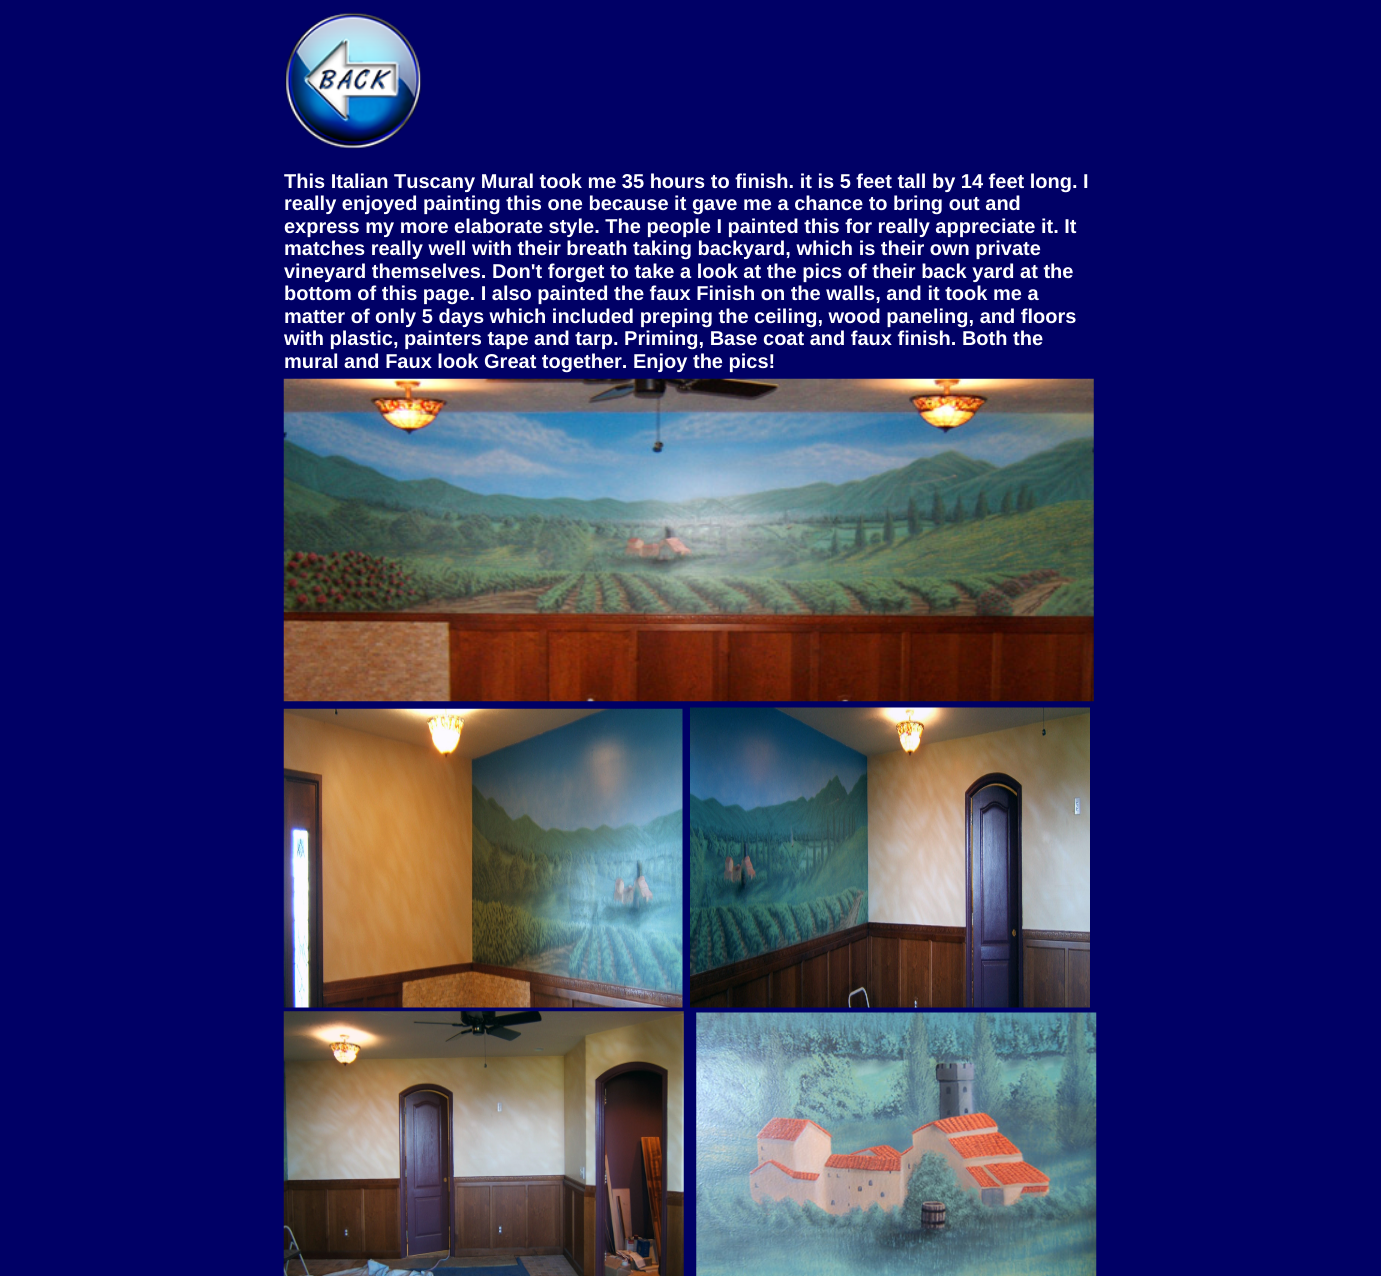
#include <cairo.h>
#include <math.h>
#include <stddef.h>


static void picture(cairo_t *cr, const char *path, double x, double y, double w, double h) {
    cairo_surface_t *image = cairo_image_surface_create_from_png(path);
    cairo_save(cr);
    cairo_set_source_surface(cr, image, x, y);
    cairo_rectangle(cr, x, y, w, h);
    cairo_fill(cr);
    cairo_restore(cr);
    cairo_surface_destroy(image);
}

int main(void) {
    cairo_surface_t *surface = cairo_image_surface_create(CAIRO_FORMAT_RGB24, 1381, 1276);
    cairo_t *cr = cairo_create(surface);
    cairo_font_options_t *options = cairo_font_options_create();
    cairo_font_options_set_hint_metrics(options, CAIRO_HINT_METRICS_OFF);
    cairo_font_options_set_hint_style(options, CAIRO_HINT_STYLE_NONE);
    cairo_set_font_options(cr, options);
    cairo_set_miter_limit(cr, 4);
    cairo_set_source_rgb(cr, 0, 0, 0.4);
    cairo_paint(cr);
    picture(cr, "img1.png", 284, 12, 138, 137);
    cairo_select_font_face(cr, "Liberation Sans", CAIRO_FONT_SLANT_NORMAL, CAIRO_FONT_WEIGHT_BOLD);
    cairo_set_font_size(cr, 20);
    cairo_set_source_rgb(cr, 1, 1, 1);
    cairo_move_to(cr, 284, 188);
    cairo_show_text(cr, "This Italian Tuscany Mural took me 35 hours to finish. it is 5 feet tall by 14 feet long. I");
    cairo_move_to(cr, 284, 210);
    cairo_show_text(cr, "really enjoyed painting this one because it gave me a chance to bring out and");
    cairo_move_to(cr, 284, 233);
    cairo_show_text(cr, "express my more elaborate style. The people I painted this for really appreciate it. It");
    cairo_move_to(cr, 284, 255);
    cairo_show_text(cr, "matches really well with their breath taking backyard, which is their own private");
    cairo_move_to(cr, 284, 278);
    cairo_show_text(cr, "vineyard themselves. Don't forget to take a look at the pics of their back yard at the");
    cairo_move_to(cr, 284, 300);
    cairo_show_text(cr, "bottom of this page. I also painted the faux Finish on the walls, and it took me a");
    cairo_move_to(cr, 284, 323);
    cairo_show_text(cr, "matter of only 5 days which included preping the ceiling, wood paneling, and floors");
    cairo_move_to(cr, 284, 345);
    cairo_show_text(cr, "with plastic, painters tape and tarp. Priming, Base coat and faux finish. Both the");
    cairo_move_to(cr, 284, 368);
    cairo_show_text(cr, "mural and Faux look Great together. Enjoy the pics!");
    picture(cr, "img2.png", 283, 378, 811, 324);
    picture(cr, "img3.png", 283, 708, 400, 300);
    picture(cr, "img4.png", 690, 707, 400, 301);
    picture(cr, "img5.png", 283, 1011, 401, 265);
    picture(cr, "img6.png", 696, 1012, 401, 264);
    cairo_surface_write_to_png(surface, "page.png");
    cairo_font_options_destroy(options);
    cairo_destroy(cr);
    cairo_surface_destroy(surface);
    return 0;
}
